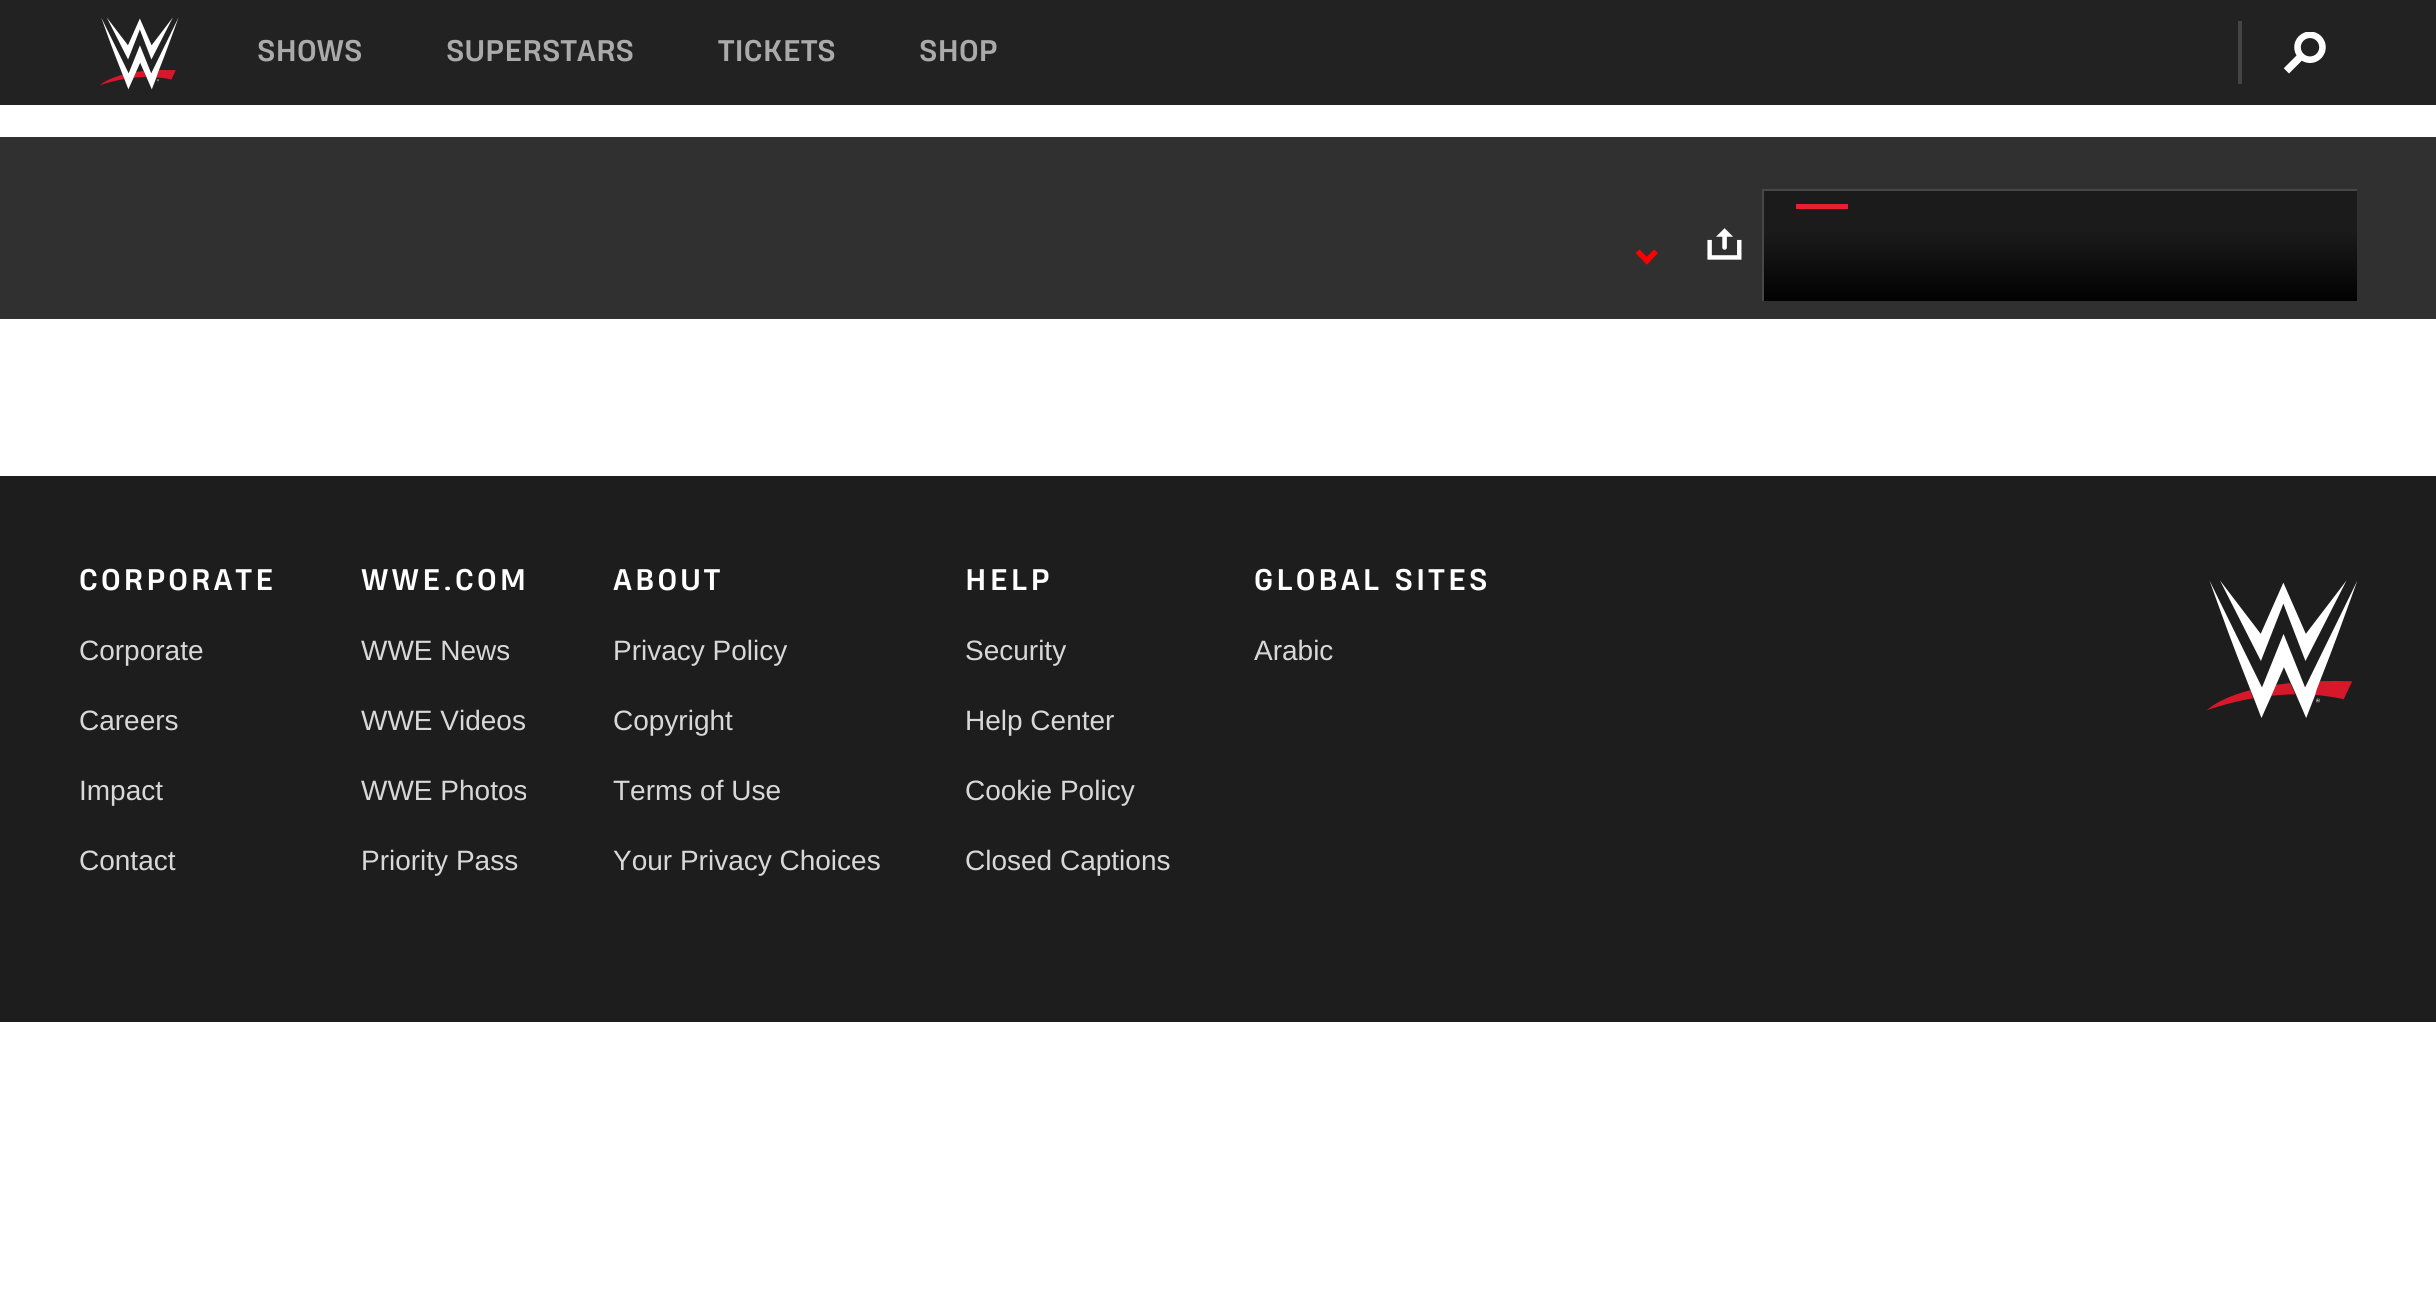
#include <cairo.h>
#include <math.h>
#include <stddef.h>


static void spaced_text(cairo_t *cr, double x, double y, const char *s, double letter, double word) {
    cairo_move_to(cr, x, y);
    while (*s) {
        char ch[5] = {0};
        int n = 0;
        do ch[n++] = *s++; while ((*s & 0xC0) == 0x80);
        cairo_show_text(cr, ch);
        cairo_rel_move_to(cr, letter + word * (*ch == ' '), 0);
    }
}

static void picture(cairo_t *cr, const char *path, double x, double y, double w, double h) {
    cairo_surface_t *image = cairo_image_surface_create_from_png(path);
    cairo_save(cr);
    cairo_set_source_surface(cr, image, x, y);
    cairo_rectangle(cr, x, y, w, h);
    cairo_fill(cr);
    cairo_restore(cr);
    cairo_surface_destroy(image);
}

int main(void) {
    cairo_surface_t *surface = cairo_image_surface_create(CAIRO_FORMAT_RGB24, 2436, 1303);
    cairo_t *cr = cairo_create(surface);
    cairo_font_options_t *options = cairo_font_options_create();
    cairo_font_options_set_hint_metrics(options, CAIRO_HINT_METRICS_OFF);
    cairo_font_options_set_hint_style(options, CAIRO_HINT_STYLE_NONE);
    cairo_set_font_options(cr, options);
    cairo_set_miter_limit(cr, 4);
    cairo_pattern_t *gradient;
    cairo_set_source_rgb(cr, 1, 1, 1);
    cairo_paint(cr);
    cairo_set_source_rgb(cr, 0.133, 0.133, 0.133);
    cairo_rectangle(cr, 0, 0, 2436, 105);
    cairo_fill(cr);
    picture(cr, "img1.png", 100, 17, 79, 73);
    cairo_select_font_face(cr, "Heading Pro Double", CAIRO_FONT_SLANT_NORMAL, CAIRO_FONT_WEIGHT_BOLD);
    cairo_set_font_size(cr, 28);
    cairo_set_source_rgb(cr, 0.667, 0.667, 0.667);
    cairo_move_to(cr, 257, 61);
    cairo_show_text(cr, "SHOWS");
    cairo_move_to(cr, 446, 61);
    cairo_show_text(cr, "SUPERSTARS");
    cairo_move_to(cr, 718, 61);
    cairo_show_text(cr, "TICKETS");
    cairo_move_to(cr, 919, 61);
    cairo_show_text(cr, "SHOP");
    cairo_set_source_rgb(cr, 0.267, 0.267, 0.267);
    cairo_rectangle(cr, 2238, 21, 4, 63);
    cairo_fill(cr);
    picture(cr, "img2.png", 2284, 32, 42, 42);
    cairo_set_source_rgb(cr, 0.188, 0.188, 0.188);
    cairo_rectangle(cr, 0, 137, 2436, 182);
    cairo_fill(cr);
    cairo_set_source_rgb(cr, 1, 0, 0);
    cairo_new_path(cr);
    cairo_move_to(cr, 1654, 249.5);
    cairo_line_to(cr, 1658, 253);
    cairo_line_to(cr, 1647, 264.5);
    cairo_line_to(cr, 1643, 260.5);
    cairo_close_path(cr);
    cairo_fill(cr);
    cairo_new_path(cr);
    cairo_move_to(cr, 1639.5, 249.5);
    cairo_line_to(cr, 1650.5, 260.5);
    cairo_line_to(cr, 1647, 264.5);
    cairo_line_to(cr, 1635.5, 253);
    cairo_close_path(cr);
    cairo_fill(cr);
    picture(cr, "img3.png", 1707, 228, 35, 32);
    cairo_set_source_rgb(cr, 0.106, 0.106, 0.106);
    cairo_rectangle(cr, 1764, 191, 593, 40);
    cairo_fill(cr);
    cairo_set_source_rgb(cr, 0.278, 0.278, 0.278);
    cairo_rectangle(cr, 1762, 189, 2, 112);
    cairo_fill(cr);
    cairo_rectangle(cr, 1764, 189, 593, 2);
    cairo_fill(cr);
    cairo_set_source_rgb(cr, 0.906, 0.125, 0.184);
    cairo_rectangle(cr, 1796, 204, 52, 5);
    cairo_fill(cr);
    gradient = cairo_pattern_create_linear(2061, 231, 2061, 301);
    cairo_pattern_add_color_stop_rgba(gradient, 0, 0.106, 0.106, 0.106, 1);
    cairo_pattern_add_color_stop_rgba(gradient, 1, 0.004, 0.004, 0.004, 1);
    cairo_set_source(cr, gradient);
    cairo_pattern_destroy(gradient);
    cairo_rectangle(cr, 1764, 231, 593, 70);
    cairo_fill(cr);
    cairo_set_source_rgb(cr, 0.114, 0.114, 0.114);
    cairo_rectangle(cr, 0, 476, 2436, 546);
    cairo_fill(cr);
    cairo_set_source_rgb(cr, 1, 1, 1);
    spaced_text(cr, 79, 590, "CORPORATE", 3, 0);
    cairo_select_font_face(cr, "Liberation Sans", CAIRO_FONT_SLANT_NORMAL, CAIRO_FONT_WEIGHT_NORMAL);
    cairo_set_source_rgb(cr, 0.847, 0.847, 0.847);
    cairo_move_to(cr, 79, 660);
    cairo_show_text(cr, "Corporate");
    cairo_move_to(cr, 79, 730);
    cairo_show_text(cr, "Careers");
    cairo_move_to(cr, 79, 800);
    cairo_show_text(cr, "Impact");
    cairo_move_to(cr, 79, 870);
    cairo_show_text(cr, "Contact");
    cairo_select_font_face(cr, "Heading Pro Double", CAIRO_FONT_SLANT_NORMAL, CAIRO_FONT_WEIGHT_BOLD);
    cairo_set_source_rgb(cr, 1, 1, 1);
    spaced_text(cr, 361, 590, "WWE.COM", 3, 0);
    cairo_select_font_face(cr, "Liberation Sans", CAIRO_FONT_SLANT_NORMAL, CAIRO_FONT_WEIGHT_NORMAL);
    cairo_set_source_rgb(cr, 0.847, 0.847, 0.847);
    cairo_move_to(cr, 361, 660);
    cairo_show_text(cr, "WWE News");
    cairo_move_to(cr, 361, 730);
    cairo_show_text(cr, "WWE Videos");
    cairo_move_to(cr, 361, 800);
    cairo_show_text(cr, "WWE Photos");
    cairo_move_to(cr, 361, 870);
    cairo_show_text(cr, "Priority Pass");
    cairo_select_font_face(cr, "Heading Pro Double", CAIRO_FONT_SLANT_NORMAL, CAIRO_FONT_WEIGHT_BOLD);
    cairo_set_source_rgb(cr, 1, 1, 1);
    spaced_text(cr, 613, 590, "ABOUT", 3, 0);
    cairo_select_font_face(cr, "Liberation Sans", CAIRO_FONT_SLANT_NORMAL, CAIRO_FONT_WEIGHT_NORMAL);
    cairo_set_source_rgb(cr, 0.847, 0.847, 0.847);
    cairo_move_to(cr, 613, 660);
    cairo_show_text(cr, "Privacy Policy");
    cairo_move_to(cr, 613, 730);
    cairo_show_text(cr, "Copyright");
    cairo_move_to(cr, 613, 800);
    cairo_show_text(cr, "Terms of Use");
    cairo_move_to(cr, 613, 870);
    cairo_show_text(cr, "Your Privacy Choices");
    cairo_select_font_face(cr, "Heading Pro Double", CAIRO_FONT_SLANT_NORMAL, CAIRO_FONT_WEIGHT_BOLD);
    cairo_set_source_rgb(cr, 1, 1, 1);
    spaced_text(cr, 965, 590, "HELP", 3, 0);
    cairo_select_font_face(cr, "Liberation Sans", CAIRO_FONT_SLANT_NORMAL, CAIRO_FONT_WEIGHT_NORMAL);
    cairo_set_source_rgb(cr, 0.847, 0.847, 0.847);
    cairo_move_to(cr, 965, 660);
    cairo_show_text(cr, "Security");
    cairo_move_to(cr, 965, 730);
    cairo_show_text(cr, "Help Center");
    cairo_move_to(cr, 965, 800);
    cairo_show_text(cr, "Cookie Policy");
    cairo_move_to(cr, 965, 870);
    cairo_show_text(cr, "Closed Captions");
    cairo_select_font_face(cr, "Heading Pro Double", CAIRO_FONT_SLANT_NORMAL, CAIRO_FONT_WEIGHT_BOLD);
    cairo_set_source_rgb(cr, 1, 1, 1);
    spaced_text(cr, 1254, 590, "GLOBAL SITES", 3, 0);
    cairo_select_font_face(cr, "Liberation Sans", CAIRO_FONT_SLANT_NORMAL, CAIRO_FONT_WEIGHT_NORMAL);
    cairo_set_source_rgb(cr, 0.847, 0.847, 0.847);
    cairo_move_to(cr, 1254, 660);
    cairo_show_text(cr, "Arabic");
    picture(cr, "img4.png", 2207, 580, 150, 138);
    cairo_surface_write_to_png(surface, "page.png");
    cairo_font_options_destroy(options);
    cairo_destroy(cr);
    cairo_surface_destroy(surface);
    return 0;
}
